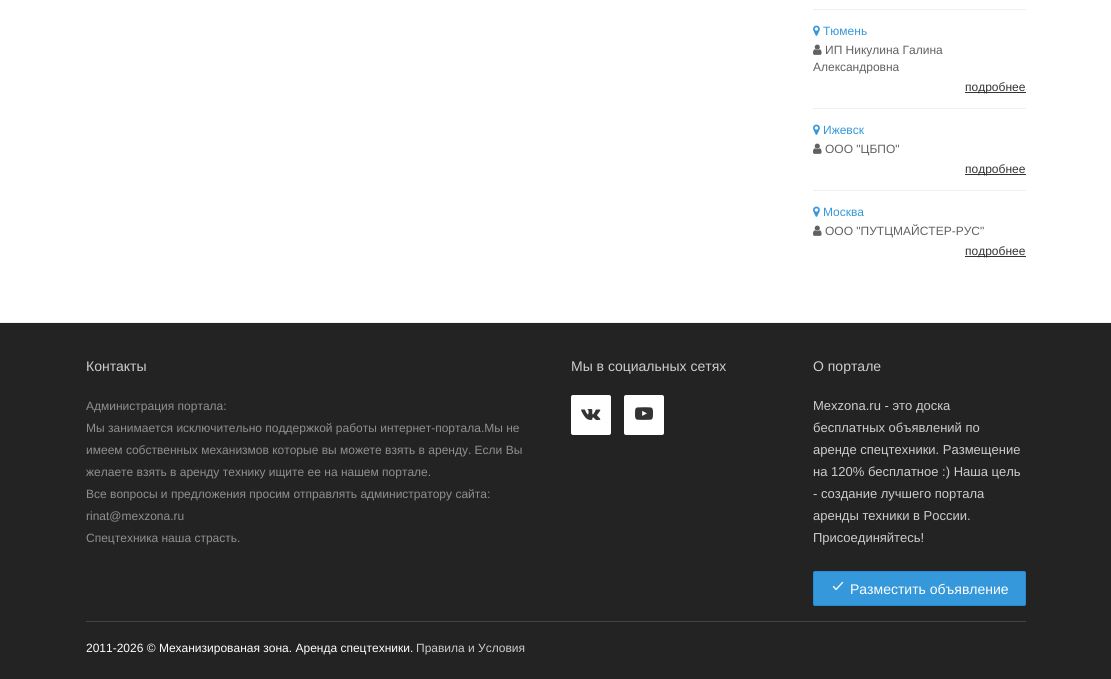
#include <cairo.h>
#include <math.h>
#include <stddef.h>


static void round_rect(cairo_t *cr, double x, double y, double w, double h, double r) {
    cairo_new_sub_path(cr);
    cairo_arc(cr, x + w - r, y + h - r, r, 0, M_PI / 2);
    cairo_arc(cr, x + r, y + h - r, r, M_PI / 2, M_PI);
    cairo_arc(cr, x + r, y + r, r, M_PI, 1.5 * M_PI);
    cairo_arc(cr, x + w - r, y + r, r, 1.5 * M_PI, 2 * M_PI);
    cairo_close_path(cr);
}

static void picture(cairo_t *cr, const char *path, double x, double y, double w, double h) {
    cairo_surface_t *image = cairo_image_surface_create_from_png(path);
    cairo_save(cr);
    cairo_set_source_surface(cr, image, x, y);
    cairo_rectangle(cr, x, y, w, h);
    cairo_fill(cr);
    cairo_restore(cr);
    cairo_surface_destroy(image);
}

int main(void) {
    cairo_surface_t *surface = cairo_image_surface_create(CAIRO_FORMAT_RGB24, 1111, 679);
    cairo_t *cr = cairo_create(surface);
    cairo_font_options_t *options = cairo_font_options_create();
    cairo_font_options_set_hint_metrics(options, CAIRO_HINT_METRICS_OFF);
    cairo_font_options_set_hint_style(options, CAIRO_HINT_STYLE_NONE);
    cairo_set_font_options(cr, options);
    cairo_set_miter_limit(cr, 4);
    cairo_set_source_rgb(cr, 1, 1, 1);
    cairo_paint(cr);
    cairo_set_source_rgb(cr, 0.925, 0.941, 0.945);
    cairo_rectangle(cr, 0, 322, 1111, 1);
    cairo_fill(cr);
    cairo_rectangle(cr, 813, 9, 213, 1);
    cairo_fill(cr);
    cairo_rectangle(cr, 813, 108, 213, 1);
    cairo_fill(cr);
    picture(cr, "img1.png", 813, 25, 7, 11);
    cairo_select_font_face(cr, "Liberation Sans", CAIRO_FONT_SLANT_NORMAL, CAIRO_FONT_WEIGHT_NORMAL);
    cairo_set_font_size(cr, 12);
    cairo_set_source_rgb(cr, 0.204, 0.596, 0.859);
    cairo_move_to(cr, 823, 35);
    cairo_show_text(cr, "Тюмень");
    picture(cr, "img2.png", 813, 44, 9, 11);
    cairo_set_source_rgb(cr, 0.38, 0.38, 0.38);
    cairo_move_to(cr, 825, 54);
    cairo_show_text(cr, "ИП Никулина Галина");
    cairo_move_to(cr, 813, 71);
    cairo_show_text(cr, "Александровна");
    cairo_set_source_rgb(cr, 0.2, 0.2, 0.2);
    cairo_rectangle(cr, 965, 92, 61, 1);
    cairo_fill(cr);
    cairo_move_to(cr, 965, 91);
    cairo_show_text(cr, "подробнее");
    cairo_set_source_rgb(cr, 0.925, 0.941, 0.945);
    cairo_rectangle(cr, 813, 190, 213, 1);
    cairo_fill(cr);
    picture(cr, "img1.png", 813, 124, 7, 11);
    cairo_set_source_rgb(cr, 0.204, 0.596, 0.859);
    cairo_move_to(cr, 823, 134);
    cairo_show_text(cr, "Ижевск");
    picture(cr, "img2.png", 813, 143, 9, 11);
    cairo_set_source_rgb(cr, 0.38, 0.38, 0.38);
    cairo_move_to(cr, 825, 153);
    cairo_show_text(cr, "ООО \"ЦБПО\"");
    cairo_set_source_rgb(cr, 0.2, 0.2, 0.2);
    cairo_rectangle(cr, 965, 174, 61, 1);
    cairo_fill(cr);
    cairo_move_to(cr, 965, 173);
    cairo_show_text(cr, "подробнее");
    picture(cr, "img1.png", 813, 206, 7, 11);
    cairo_set_source_rgb(cr, 0.204, 0.596, 0.859);
    cairo_move_to(cr, 823, 216);
    cairo_show_text(cr, "Москва");
    picture(cr, "img2.png", 813, 225, 9, 11);
    cairo_set_source_rgb(cr, 0.38, 0.38, 0.38);
    cairo_move_to(cr, 825, 235);
    cairo_show_text(cr, "ООО \"ПУТЦМАЙСТЕР-РУС\"");
    cairo_set_source_rgb(cr, 0.2, 0.2, 0.2);
    cairo_rectangle(cr, 965, 256, 61, 1);
    cairo_fill(cr);
    cairo_move_to(cr, 965, 255);
    cairo_show_text(cr, "подробнее");
    cairo_set_source_rgb(cr, 0.137, 0.137, 0.137);
    cairo_rectangle(cr, 0, 323, 1111, 356);
    cairo_fill(cr);
    cairo_set_font_size(cr, 14);
    cairo_set_source_rgb(cr, 0.8, 0.8, 0.8);
    cairo_move_to(cr, 86, 371);
    cairo_show_text(cr, "Контакты");
    cairo_set_font_size(cr, 12);
    cairo_set_source_rgb(cr, 0.561, 0.561, 0.561);
    cairo_move_to(cr, 86, 410);
    cairo_show_text(cr, "Администрация портала:");
    cairo_move_to(cr, 86, 432);
    cairo_show_text(cr, "Мы занимается исключительно поддержкой работы интернет-портала.Мы не");
    cairo_move_to(cr, 86, 454);
    cairo_show_text(cr, "имеем собственных механизмов которые вы можете взять в аренду. Если Вы");
    cairo_move_to(cr, 86, 476);
    cairo_show_text(cr, "желаете взять в аренду технику ищите ее на нашем портале.");
    cairo_move_to(cr, 86, 498);
    cairo_show_text(cr, "Все вопросы и предложения просим отправлять администратору сайта:");
    cairo_move_to(cr, 86, 520);
    cairo_show_text(cr, "rinat@mexzona.ru");
    cairo_move_to(cr, 86, 542);
    cairo_show_text(cr, "Спецтехника наша страсть.");
    cairo_set_font_size(cr, 14);
    cairo_set_source_rgb(cr, 0.8, 0.8, 0.8);
    cairo_move_to(cr, 571, 371);
    cairo_show_text(cr, "Мы в социальных сетях");
    cairo_set_source_rgb(cr, 1, 1, 1);
    round_rect(cr, 571, 395, 40, 40, 2);
    cairo_fill(cr);
    picture(cr, "img3.png", 581, 409, 20, 11);
    round_rect(cr, 624, 395, 40, 40, 2);
    cairo_fill(cr);
    picture(cr, "img4.png", 635, 407, 18, 13);
    cairo_set_source_rgb(cr, 0.8, 0.8, 0.8);
    cairo_move_to(cr, 813, 371);
    cairo_show_text(cr, "О портале");
    cairo_set_font_size(cr, 13);
    cairo_move_to(cr, 813, 410);
    cairo_show_text(cr, "Mexzona.ru - это доска");
    cairo_move_to(cr, 813, 432);
    cairo_show_text(cr, "бесплатных объявлений по");
    cairo_move_to(cr, 813, 454);
    cairo_show_text(cr, "аренде спецтехники. Размещение");
    cairo_move_to(cr, 813, 476);
    cairo_show_text(cr, "на 120% бесплатное :) Наша цель");
    cairo_move_to(cr, 813, 498);
    cairo_show_text(cr, "- создание лучшего портала");
    cairo_move_to(cr, 813, 520);
    cairo_show_text(cr, "аренды техники в России.");
    cairo_move_to(cr, 813, 542);
    cairo_show_text(cr, "Присоединяйтесь!");
    cairo_set_source_rgb(cr, 0.204, 0.596, 0.859);
    round_rect(cr, 813.5, 571.5, 212, 34, 1.5);
    cairo_fill_preserve(cr);
    cairo_set_source_rgb(cr, 0.145, 0.549, 0.82);
    cairo_set_line_width(cr, 1);
    cairo_stroke(cr);
    cairo_new_path(cr);
    cairo_move_to(cr, 833.5, 586.5);
    cairo_line_to(cr, 836, 589.5);
    cairo_line_to(cr, 842.5, 582.5);
    cairo_set_source_rgb(cr, 1, 1, 1);
    cairo_set_line_width(cr, 1.3);
    cairo_set_line_cap(cr, CAIRO_LINE_CAP_ROUND);
    cairo_set_line_join(cr, CAIRO_LINE_JOIN_ROUND);
    cairo_stroke(cr);
    cairo_set_font_size(cr, 14);
    cairo_move_to(cr, 850, 594);
    cairo_show_text(cr, "Разместить объявление");
    cairo_set_source_rgb(cr, 0.267, 0.267, 0.267);
    cairo_rectangle(cr, 86, 621, 940, 1);
    cairo_fill(cr);
    cairo_set_font_size(cr, 12);
    cairo_set_source_rgb(cr, 1, 1, 1);
    cairo_move_to(cr, 86, 652);
    cairo_show_text(cr, "2011-2026 © Механизированая зона. Аренда спецтехники.");
    cairo_set_source_rgb(cr, 0.8, 0.8, 0.8);
    cairo_move_to(cr, 416, 652);
    cairo_show_text(cr, "Правила и Условия");
    cairo_surface_write_to_png(surface, "page.png");
    cairo_font_options_destroy(options);
    cairo_destroy(cr);
    cairo_surface_destroy(surface);
    return 0;
}
